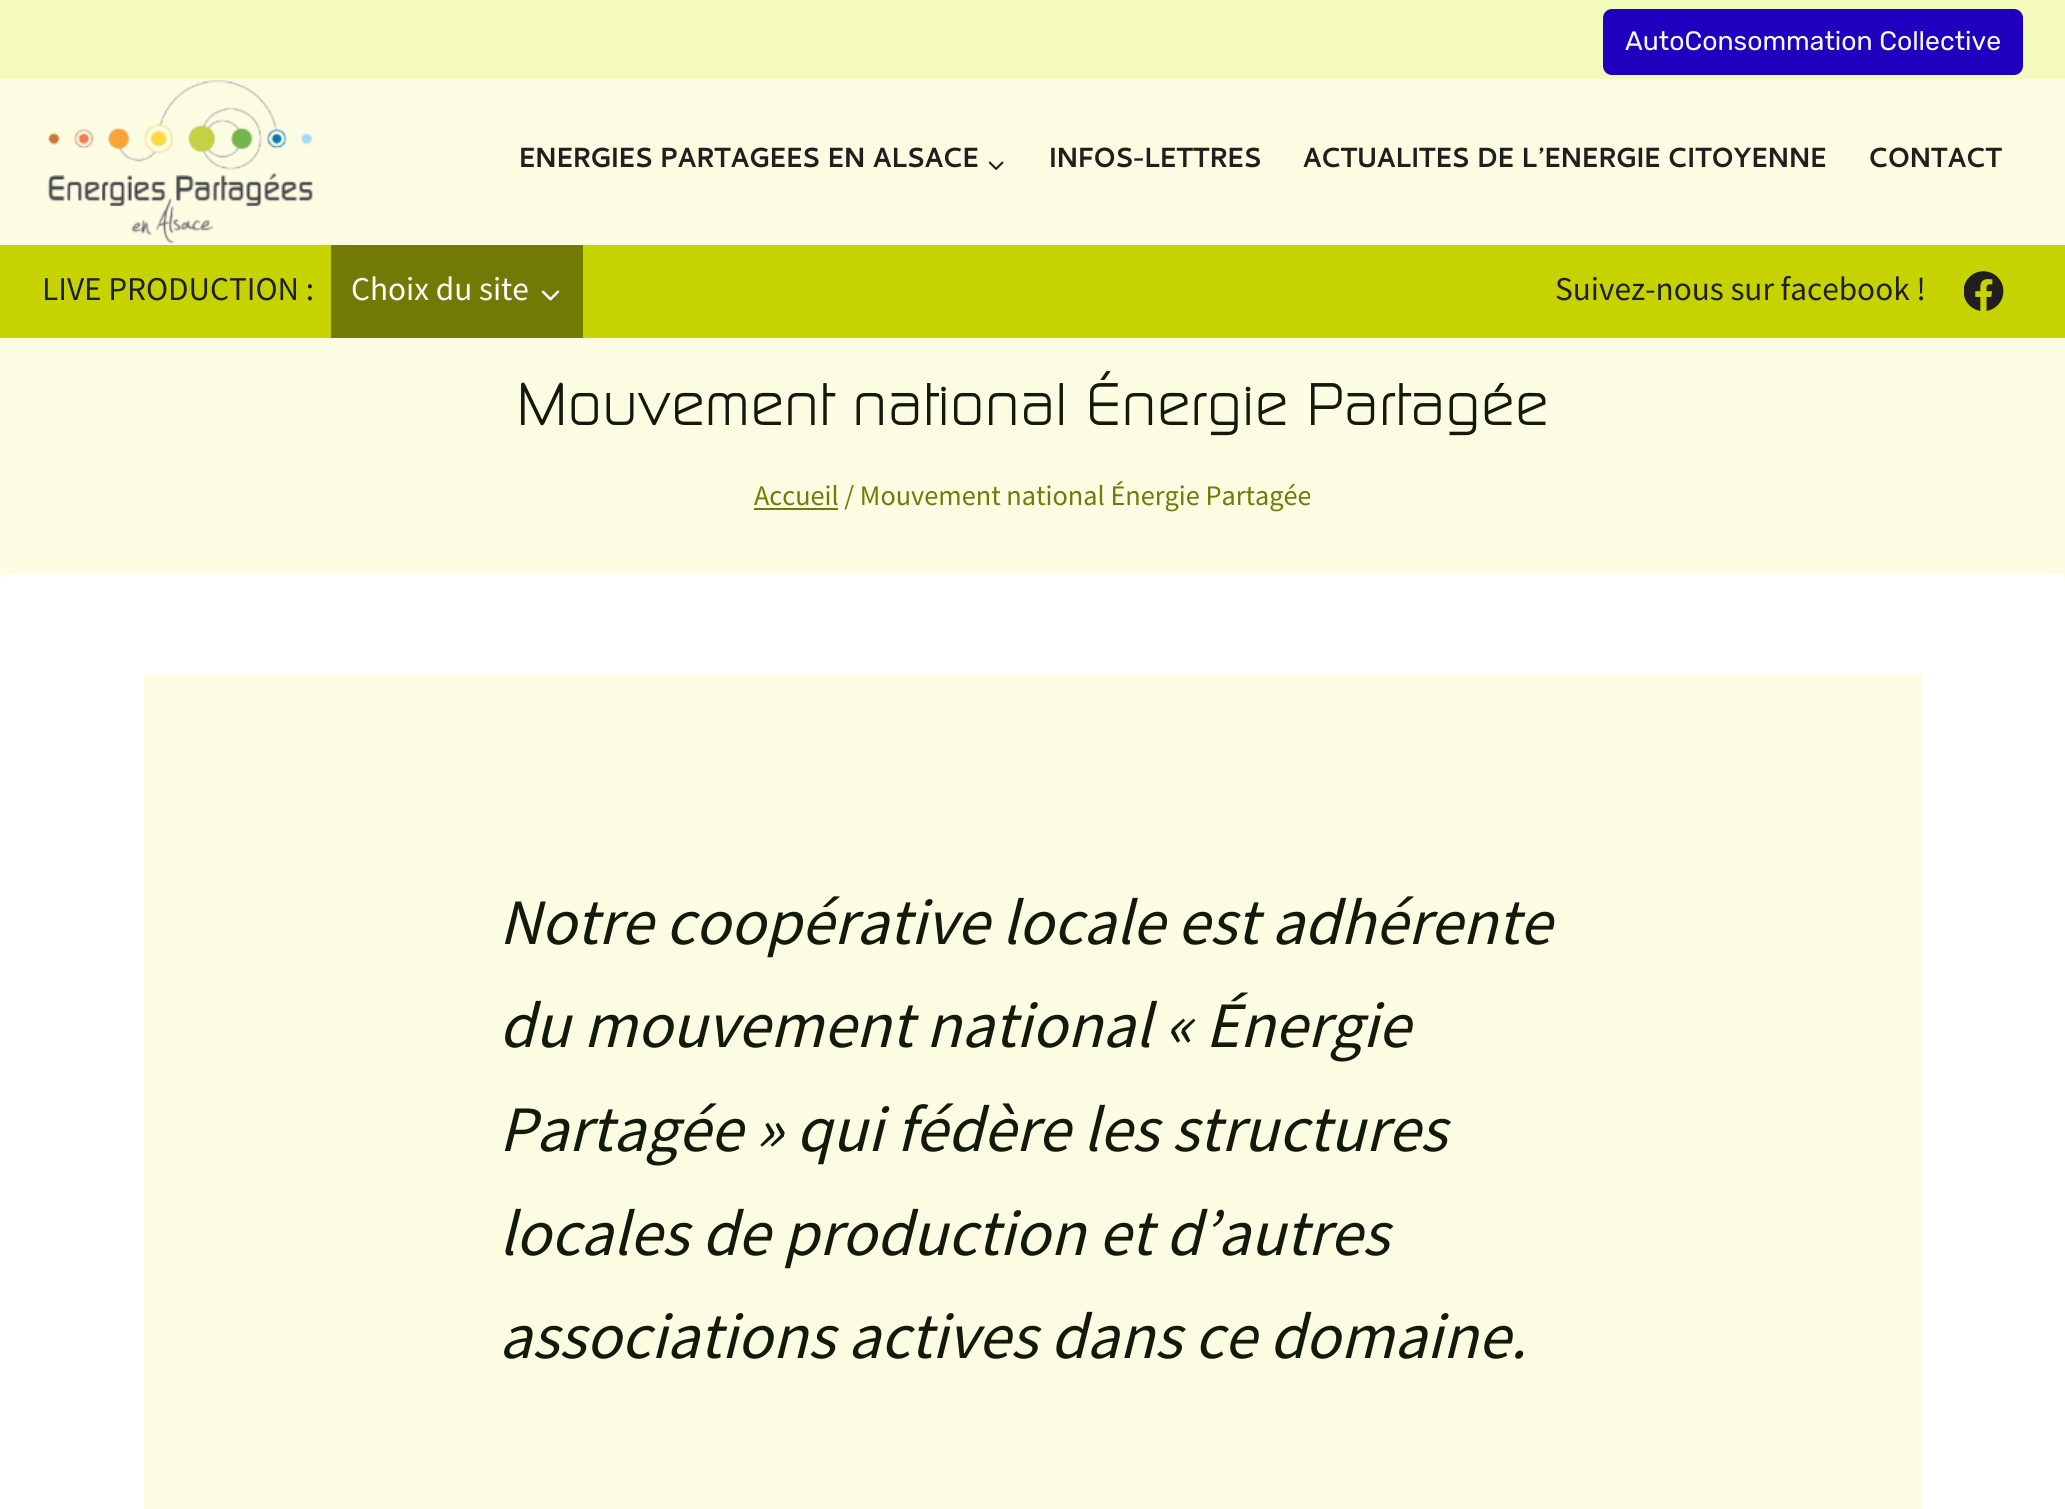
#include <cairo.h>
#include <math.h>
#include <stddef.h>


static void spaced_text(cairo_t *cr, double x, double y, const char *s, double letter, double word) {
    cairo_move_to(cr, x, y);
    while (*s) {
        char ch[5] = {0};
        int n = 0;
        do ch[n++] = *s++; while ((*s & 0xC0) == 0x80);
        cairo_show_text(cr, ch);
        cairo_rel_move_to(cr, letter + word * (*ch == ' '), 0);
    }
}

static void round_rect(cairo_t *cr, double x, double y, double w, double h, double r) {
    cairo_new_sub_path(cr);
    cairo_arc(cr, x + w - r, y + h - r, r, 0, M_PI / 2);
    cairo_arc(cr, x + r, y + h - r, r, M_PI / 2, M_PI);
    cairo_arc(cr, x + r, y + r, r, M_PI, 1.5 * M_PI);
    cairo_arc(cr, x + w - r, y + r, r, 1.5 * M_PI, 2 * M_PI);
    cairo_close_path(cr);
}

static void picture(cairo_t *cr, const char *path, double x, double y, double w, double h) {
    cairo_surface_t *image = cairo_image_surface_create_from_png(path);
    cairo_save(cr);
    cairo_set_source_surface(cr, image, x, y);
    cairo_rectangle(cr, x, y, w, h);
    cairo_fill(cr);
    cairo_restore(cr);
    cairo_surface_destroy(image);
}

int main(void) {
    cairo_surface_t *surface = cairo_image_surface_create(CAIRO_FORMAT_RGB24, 2065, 1509);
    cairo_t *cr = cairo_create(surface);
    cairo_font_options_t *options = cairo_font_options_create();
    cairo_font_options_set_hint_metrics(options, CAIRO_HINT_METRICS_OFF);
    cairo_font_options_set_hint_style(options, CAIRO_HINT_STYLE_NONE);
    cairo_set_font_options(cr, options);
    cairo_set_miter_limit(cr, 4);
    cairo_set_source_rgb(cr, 0.988, 0.988, 0.89);
    cairo_paint(cr);
    cairo_set_source_rgb(cr, 0.953, 0.98, 0.733);
    cairo_rectangle(cr, 0, 0, 2065, 79);
    cairo_fill(cr);
    cairo_set_source_rgb(cr, 0.125, 0, 0.749);
    round_rect(cr, 1605, 11, 416, 62, 7);
    cairo_fill_preserve(cr);
    cairo_set_line_width(cr, 4);
    cairo_stroke(cr);
    cairo_select_font_face(cr, "Rubik Light", CAIRO_FONT_SLANT_NORMAL, CAIRO_FONT_WEIGHT_NORMAL);
    cairo_set_font_size(cr, 26.6);
    cairo_set_source_rgb(cr, 0.965, 0.969, 0.961);
    cairo_move_to(cr, 1625, 50);
    cairo_show_text(cr, "AutoConsommation Collective");
    picture(cr, "img1.png", 47, 80, 266, 164);
    cairo_select_font_face(cr, "Cambay", CAIRO_FONT_SLANT_NORMAL, CAIRO_FONT_WEIGHT_BOLD);
    cairo_set_font_size(cr, 28);
    cairo_set_source_rgb(cr, 0.122, 0.122, 0.114);
    cairo_move_to(cr, 519, 167);
    cairo_show_text(cr, "ENERGIES PARTAGEES EN ALSACE");
    picture(cr, "img2.png", 988, 161, 16, 9);
    cairo_move_to(cr, 1049, 167);
    cairo_show_text(cr, "INFOS-LETTRES");
    cairo_move_to(cr, 1303, 167);
    cairo_show_text(cr, "ACTUALITES DE L’ENERGIE CITOYENNE");
    cairo_move_to(cr, 1869, 167);
    cairo_show_text(cr, "CONTACT");
    cairo_set_source_rgb(cr, 0.78, 0.827, 0.004);
    cairo_rectangle(cr, 0, 245, 2065, 93);
    cairo_fill(cr);
    cairo_select_font_face(cr, "Mada", CAIRO_FONT_SLANT_NORMAL, CAIRO_FONT_WEIGHT_NORMAL);
    cairo_set_font_size(cr, 33.25);
    cairo_set_source_rgb(cr, 0.122, 0.122, 0.114);
    cairo_move_to(cr, 42, 300);
    cairo_show_text(cr, "LIVE PRODUCTION :");
    cairo_set_source_rgb(cr, 0.447, 0.475, 0.016);
    cairo_rectangle(cr, 331, 245, 252, 93);
    cairo_fill(cr);
    cairo_set_source_rgb(cr, 1, 1, 1);
    cairo_move_to(cr, 351, 300);
    cairo_show_text(cr, "Choix du site");
    picture(cr, "img3.png", 541, 290, 19, 11);
    cairo_set_source_rgb(cr, 0.122, 0.122, 0.114);
    cairo_move_to(cr, 1555, 300);
    cairo_show_text(cr, "Suivez-nous sur facebook !");
    picture(cr, "img4.png", 1964, 271, 40, 40);
    cairo_select_font_face(cr, "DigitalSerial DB", CAIRO_FONT_SLANT_NORMAL, CAIRO_FONT_WEIGHT_BOLD);
    cairo_set_font_size(cr, 56);
    cairo_set_source_rgb(cr, 0.078, 0.102, 0.047);
    spaced_text(cr, 517, 425, "Mouvement national Énergie Partagée", 2.25, 0);
    cairo_set_source_rgb(cr, 0.447, 0.475, 0.016);
    cairo_rectangle(cr, 754, 508, 84, 2);
    cairo_fill(cr);
    cairo_select_font_face(cr, "Mada", CAIRO_FONT_SLANT_NORMAL, CAIRO_FONT_WEIGHT_NORMAL);
    cairo_set_font_size(cr, 28.25);
    cairo_move_to(cr, 754, 505);
    cairo_show_text(cr, "Accueil / Mouvement national Énergie Partagée");
    cairo_set_source_rgb(cr, 1, 1, 1);
    round_rect(cr, 0, 574, 2065, 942, 7);
    cairo_fill(cr);
    cairo_set_source_rgb(cr, 0.988, 0.988, 0.89);
    cairo_rectangle(cr, 144, 674, 1778, 835);
    cairo_fill(cr);
    cairo_select_font_face(cr, "Mada", CAIRO_FONT_SLANT_ITALIC, CAIRO_FONT_WEIGHT_NORMAL);
    cairo_set_font_size(cr, 64.8);
    cairo_set_source_rgb(cr, 0.078, 0.102, 0.047);
    cairo_move_to(cr, 499, 944);
    cairo_show_text(cr, "Notre coopérative locale est adhérente");
    cairo_move_to(cr, 499, 1047);
    cairo_show_text(cr, "du mouvement national « Énergie");
    cairo_move_to(cr, 499, 1151);
    cairo_show_text(cr, "Partagée » qui fédère les structures");
    cairo_move_to(cr, 499, 1255);
    cairo_show_text(cr, "locales de production et d’autres");
    cairo_move_to(cr, 499, 1358);
    cairo_show_text(cr, "associations actives dans ce domaine.");
    cairo_surface_write_to_png(surface, "page.png");
    cairo_font_options_destroy(options);
    cairo_destroy(cr);
    cairo_surface_destroy(surface);
    return 0;
}
